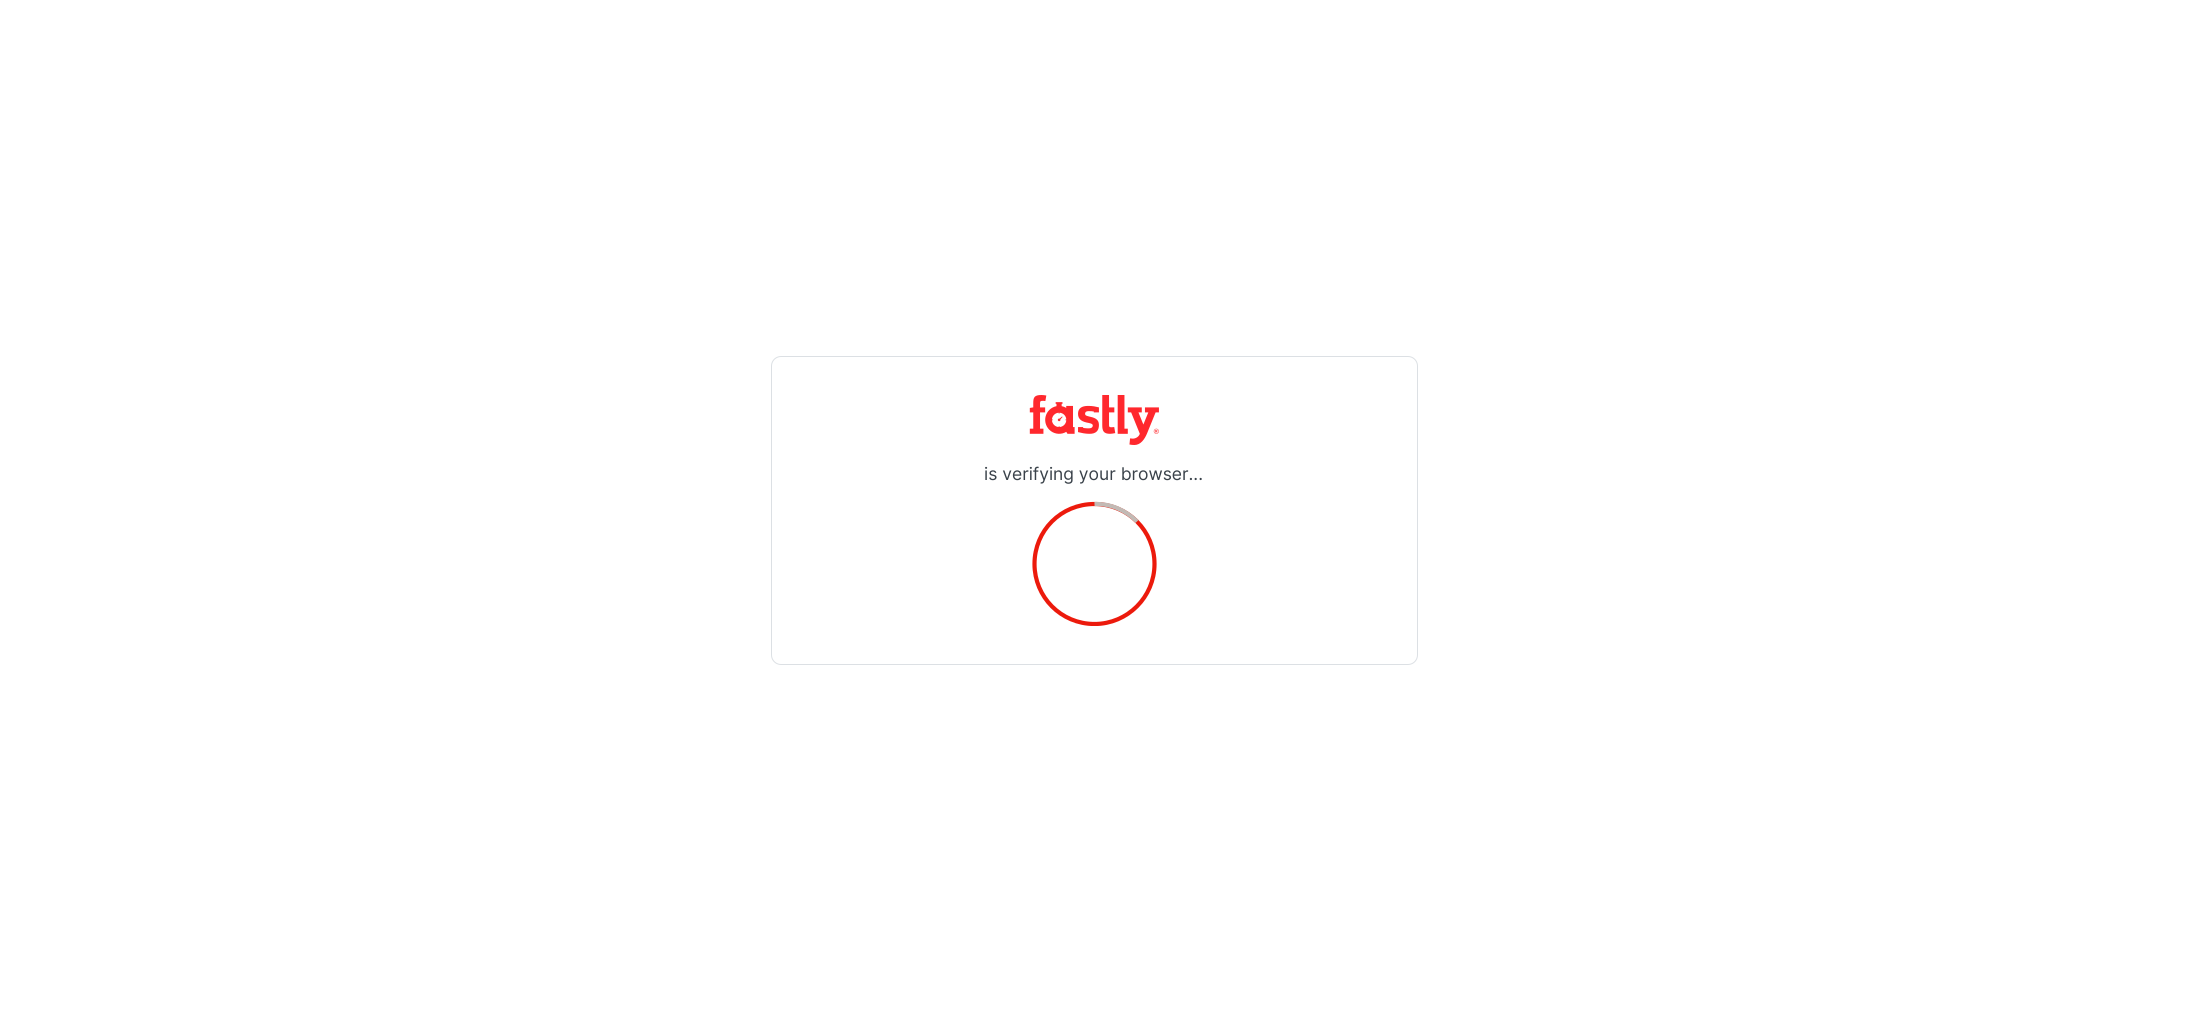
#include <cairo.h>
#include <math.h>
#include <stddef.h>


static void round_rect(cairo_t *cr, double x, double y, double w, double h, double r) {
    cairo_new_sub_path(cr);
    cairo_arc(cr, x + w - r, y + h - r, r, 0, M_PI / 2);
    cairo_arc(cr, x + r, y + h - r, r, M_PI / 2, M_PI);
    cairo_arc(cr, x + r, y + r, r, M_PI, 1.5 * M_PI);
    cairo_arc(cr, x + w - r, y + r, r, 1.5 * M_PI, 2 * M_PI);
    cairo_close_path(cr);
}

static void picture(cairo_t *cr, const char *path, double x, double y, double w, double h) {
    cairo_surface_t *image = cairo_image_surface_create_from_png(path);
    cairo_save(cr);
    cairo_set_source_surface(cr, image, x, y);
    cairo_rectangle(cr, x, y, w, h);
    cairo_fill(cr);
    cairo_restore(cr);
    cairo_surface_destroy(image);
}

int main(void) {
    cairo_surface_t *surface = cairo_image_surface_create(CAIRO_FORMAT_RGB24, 2187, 1021);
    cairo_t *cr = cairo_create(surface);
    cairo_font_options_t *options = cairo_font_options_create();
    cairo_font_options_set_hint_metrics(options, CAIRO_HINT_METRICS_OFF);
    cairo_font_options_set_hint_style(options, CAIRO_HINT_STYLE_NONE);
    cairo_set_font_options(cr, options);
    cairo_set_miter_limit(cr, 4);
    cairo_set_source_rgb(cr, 1, 1, 1);
    cairo_paint(cr);
    round_rect(cr, 771.5, 356.5, 646, 308, 9.5);
    cairo_set_source_rgb(cr, 0.863, 0.878, 0.894);
    cairo_set_line_width(cr, 1);
    cairo_stroke(cr);
    picture(cr, "img1.png", 1029, 395, 130, 50);
    cairo_select_font_face(cr, "Inter", CAIRO_FONT_SLANT_NORMAL, CAIRO_FONT_WEIGHT_NORMAL);
    cairo_set_font_size(cr, 17.5);
    cairo_set_source_rgb(cr, 0.227, 0.259, 0.29);
    cairo_move_to(cr, 984, 480);
    cairo_show_text(cr, "is verifying your browser...");
    cairo_save(cr);
    cairo_rectangle(cr, 810, 501, 569, 125);
    cairo_clip(cr);
    cairo_new_path(cr);
    cairo_move_to(cr, 1034.5, 564);
    cairo_curve_to(cr, 1034.5, 530.5, 1061, 504, 1094.5, 504);
    cairo_curve_to(cr, 1127.5, 504, 1154.5, 530.5, 1154.5, 564);
    cairo_curve_to(cr, 1154.5, 597, 1127.5, 624, 1094.5, 624);
    cairo_curve_to(cr, 1061, 624, 1034.5, 597, 1034.5, 564);
    cairo_close_path(cr);
    cairo_set_source_rgb(cr, 0.922, 0.102, 0.047);
    cairo_set_line_width(cr, 4.2);
    cairo_stroke(cr);
    cairo_restore(cr);
    cairo_new_path(cr);
    cairo_move_to(cr, 1137, 521.5);
    cairo_curve_to(cr, 1125.5, 510, 1110.5, 503.5, 1094.5, 504);
    cairo_set_source_rgb(cr, 0.761, 0.729, 0.71);
    cairo_set_line_width(cr, 4.2);
    cairo_stroke(cr);
    cairo_surface_write_to_png(surface, "page.png");
    cairo_font_options_destroy(options);
    cairo_destroy(cr);
    cairo_surface_destroy(surface);
    return 0;
}
